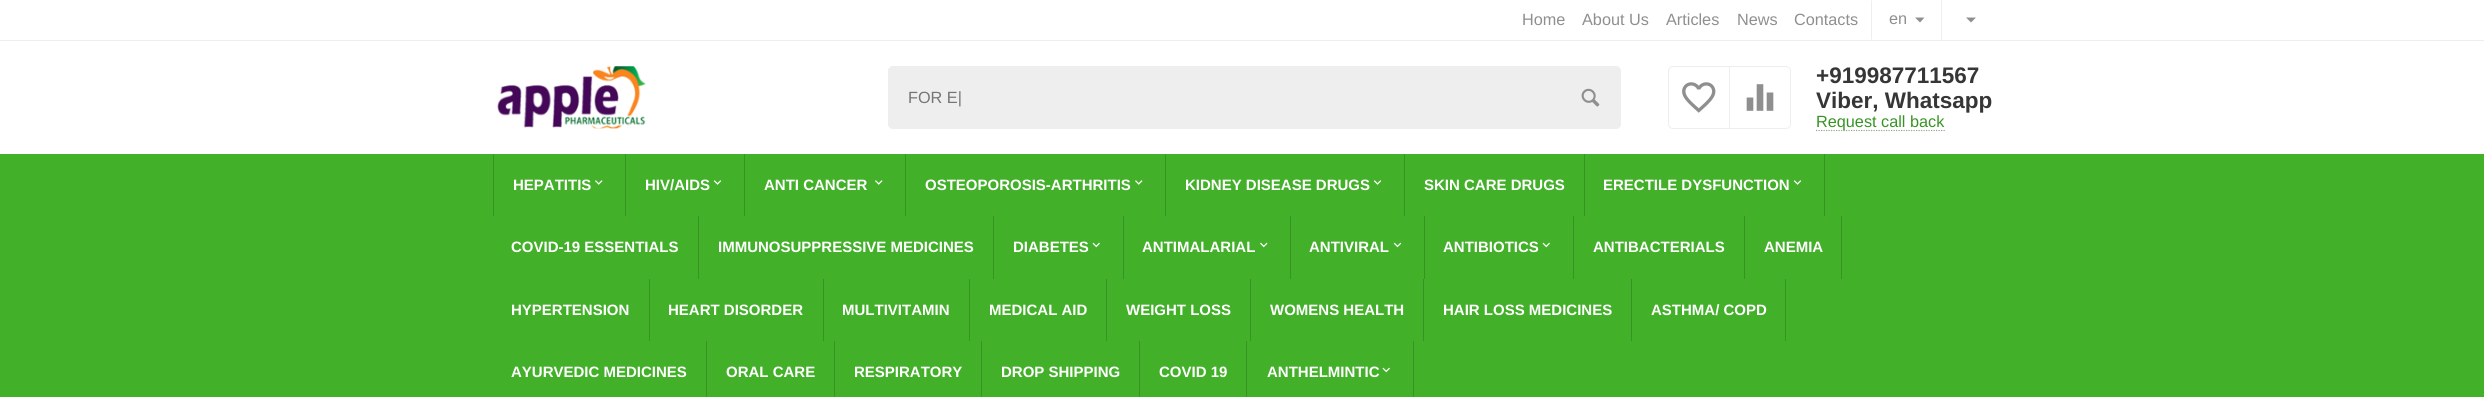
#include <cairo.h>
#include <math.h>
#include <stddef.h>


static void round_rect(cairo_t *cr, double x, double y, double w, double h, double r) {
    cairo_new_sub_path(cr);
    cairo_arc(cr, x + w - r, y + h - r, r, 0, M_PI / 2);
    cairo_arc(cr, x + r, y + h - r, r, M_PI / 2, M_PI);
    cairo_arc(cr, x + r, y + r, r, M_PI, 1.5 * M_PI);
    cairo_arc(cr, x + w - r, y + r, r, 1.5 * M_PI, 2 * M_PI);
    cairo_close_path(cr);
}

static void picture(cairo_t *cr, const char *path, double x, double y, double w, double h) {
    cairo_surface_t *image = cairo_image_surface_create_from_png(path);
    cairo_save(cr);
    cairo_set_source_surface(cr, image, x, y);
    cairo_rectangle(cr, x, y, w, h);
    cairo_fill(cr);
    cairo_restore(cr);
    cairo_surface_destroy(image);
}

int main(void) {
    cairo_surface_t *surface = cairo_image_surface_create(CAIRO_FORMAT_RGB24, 2484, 397);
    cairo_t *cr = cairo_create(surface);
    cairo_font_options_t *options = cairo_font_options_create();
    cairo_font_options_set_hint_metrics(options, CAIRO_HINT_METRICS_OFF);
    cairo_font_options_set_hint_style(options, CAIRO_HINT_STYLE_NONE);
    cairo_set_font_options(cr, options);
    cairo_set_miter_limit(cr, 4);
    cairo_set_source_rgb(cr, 1, 1, 1);
    cairo_paint(cr);
    cairo_set_source_rgb(cr, 0.933, 0.933, 0.933);
    cairo_rectangle(cr, 0, 40, 2484, 1);
    cairo_fill(cr);
    cairo_select_font_face(cr, "Liberation Sans", CAIRO_FONT_SLANT_NORMAL, CAIRO_FONT_WEIGHT_NORMAL);
    cairo_set_font_size(cr, 16.25);
    cairo_set_source_rgb(cr, 0.561, 0.561, 0.561);
    cairo_move_to(cr, 1522, 25);
    cairo_show_text(cr, "Home");
    cairo_move_to(cr, 1582, 25);
    cairo_show_text(cr, "About Us");
    cairo_move_to(cr, 1666, 25);
    cairo_show_text(cr, "Articles");
    cairo_move_to(cr, 1737, 25);
    cairo_show_text(cr, "News");
    cairo_move_to(cr, 1794, 25);
    cairo_show_text(cr, "Contacts");
    cairo_set_source_rgb(cr, 0.933, 0.933, 0.933);
    cairo_new_path(cr);
    cairo_move_to(cr, 1871, 40);
    cairo_line_to(cr, 1871, 0);
    cairo_line_to(cr, 1872, 1);
    cairo_line_to(cr, 1872, 39);
    cairo_close_path(cr);
    cairo_fill(cr);
    cairo_set_source_rgb(cr, 0.561, 0.561, 0.561);
    cairo_move_to(cr, 1889, 24);
    cairo_show_text(cr, "en");
    cairo_new_path(cr);
    cairo_move_to(cr, 1920, 22.5);
    cairo_line_to(cr, 1915, 17.5);
    cairo_line_to(cr, 1924.5, 17.5);
    cairo_close_path(cr);
    cairo_fill(cr);
    cairo_set_source_rgb(cr, 0.933, 0.933, 0.933);
    cairo_new_path(cr);
    cairo_move_to(cr, 1941, 40);
    cairo_line_to(cr, 1941, 0);
    cairo_line_to(cr, 1942, 1);
    cairo_line_to(cr, 1942, 39);
    cairo_close_path(cr);
    cairo_fill(cr);
    cairo_set_source_rgb(cr, 0.561, 0.561, 0.561);
    cairo_new_path(cr);
    cairo_move_to(cr, 1971, 22.5);
    cairo_line_to(cr, 1966, 17.5);
    cairo_line_to(cr, 1976, 17.5);
    cairo_close_path(cr);
    cairo_fill(cr);
    picture(cr, "img1.png", 497, 66, 149, 63);
    cairo_set_source_rgb(cr, 0.933, 0.933, 0.933);
    round_rect(cr, 888.5, 66.5, 732, 62, 4.5);
    cairo_fill_preserve(cr);
    cairo_set_line_width(cr, 1);
    cairo_stroke(cr);
    cairo_set_source_rgb(cr, 0.459, 0.459, 0.459);
    cairo_move_to(cr, 908, 103);
    cairo_show_text(cr, "FOR E|");
    picture(cr, "img2.png", 1581, 88, 19, 19);
    cairo_new_path(cr);
    cairo_move_to(cr, 1729.5, 66.5);
    cairo_line_to(cr, 1786, 66.5);
    cairo_curve_to(cr, 1788.5, 66.5, 1790.5, 68.5, 1790.5, 71);
    cairo_line_to(cr, 1790.5, 124);
    cairo_curve_to(cr, 1790.5, 126.5, 1788.5, 128.5, 1786, 128.5);
    cairo_line_to(cr, 1729.5, 128.5);
    cairo_close_path(cr);
    cairo_set_source_rgb(cr, 0.933, 0.933, 0.933);
    cairo_stroke(cr);
    cairo_set_source_rgb(cr, 1, 1, 1);
    cairo_new_path(cr);
    cairo_move_to(cr, 1673, 66.5);
    cairo_line_to(cr, 1729.5, 66.5);
    cairo_line_to(cr, 1729.5, 128.5);
    cairo_line_to(cr, 1673, 128.5);
    cairo_curve_to(cr, 1670.5, 128.5, 1668.5, 126.5, 1668.5, 124);
    cairo_line_to(cr, 1668.5, 71);
    cairo_curve_to(cr, 1668.5, 68.5, 1670.5, 66.5, 1673, 66.5);
    cairo_close_path(cr);
    cairo_fill_preserve(cr);
    cairo_set_source_rgb(cr, 0.933, 0.933, 0.933);
    cairo_stroke(cr);
    picture(cr, "img3.png", 1682, 82, 34, 31);
    picture(cr, "img4.png", 1746, 84, 28, 27);
    cairo_select_font_face(cr, "Liberation Sans", CAIRO_FONT_SLANT_NORMAL, CAIRO_FONT_WEIGHT_BOLD);
    cairo_set_font_size(cr, 22.5);
    cairo_set_source_rgb(cr, 0.212, 0.212, 0.212);
    cairo_move_to(cr, 1816, 83);
    cairo_show_text(cr, "+919987711567");
    cairo_move_to(cr, 1816, 108);
    cairo_show_text(cr, "Viber, Whatsapp");
    cairo_new_path(cr);
    cairo_move_to(cr, 1816, 130.5);
    cairo_line_to(cr, 1945, 130.5);
    cairo_set_source_rgb(cr, 0.584, 0.655, 0.569);
    cairo_set_line_width(cr, 1.2);
    cairo_set_dash(cr, (double[]){1.25, 1.25}, 2, 0);
    cairo_stroke(cr);
    cairo_select_font_face(cr, "Liberation Sans", CAIRO_FONT_SLANT_NORMAL, CAIRO_FONT_WEIGHT_NORMAL);
    cairo_set_font_size(cr, 16.25);
    cairo_set_source_rgb(cr, 0.216, 0.58, 0.141);
    cairo_move_to(cr, 1816, 127);
    cairo_show_text(cr, "Request call back");
    cairo_set_source_rgb(cr, 0.263, 0.69, 0.165);
    cairo_rectangle(cr, 0, 154, 2484, 243);
    cairo_fill(cr);
    cairo_set_source_rgb(cr, 0.216, 0.58, 0.141);
    cairo_rectangle(cr, 625, 154, 1, 62);
    cairo_fill(cr);
    cairo_rectangle(cr, 493, 154, 1, 62);
    cairo_fill(cr);
    cairo_select_font_face(cr, "Liberation Sans", CAIRO_FONT_SLANT_NORMAL, CAIRO_FONT_WEIGHT_BOLD);
    cairo_set_font_size(cr, 15);
    cairo_set_source_rgb(cr, 1, 1, 1);
    cairo_move_to(cr, 513, 190);
    cairo_show_text(cr, "HEPATITIS");
    picture(cr, "img5.png", 595, 180, 8, 5);
    cairo_set_source_rgb(cr, 0.216, 0.58, 0.141);
    cairo_rectangle(cr, 744, 154, 1, 62);
    cairo_fill(cr);
    cairo_set_source_rgb(cr, 1, 1, 1);
    cairo_move_to(cr, 645, 190);
    cairo_show_text(cr, "HIV/AIDS");
    picture(cr, "img6.png", 713, 180, 9, 5);
    cairo_set_source_rgb(cr, 0.216, 0.58, 0.141);
    cairo_rectangle(cr, 905, 154, 1, 62);
    cairo_fill(cr);
    cairo_set_source_rgb(cr, 1, 1, 1);
    cairo_move_to(cr, 764, 190);
    cairo_show_text(cr, "ANTI CANCER");
    picture(cr, "img5.png", 875, 180, 8, 5);
    cairo_set_source_rgb(cr, 0.216, 0.58, 0.141);
    cairo_rectangle(cr, 1165, 154, 1, 62);
    cairo_fill(cr);
    cairo_set_source_rgb(cr, 1, 1, 1);
    cairo_move_to(cr, 925, 190);
    cairo_show_text(cr, "OSTEOPOROSIS-ARTHRITIS");
    picture(cr, "img5.png", 1135, 180, 8, 5);
    cairo_set_source_rgb(cr, 0.216, 0.58, 0.141);
    cairo_rectangle(cr, 1404, 154, 1, 62);
    cairo_fill(cr);
    cairo_set_source_rgb(cr, 1, 1, 1);
    cairo_move_to(cr, 1185, 190);
    cairo_show_text(cr, "KIDNEY DISEASE DRUGS");
    picture(cr, "img6.png", 1373, 180, 9, 5);
    cairo_set_source_rgb(cr, 0.216, 0.58, 0.141);
    cairo_rectangle(cr, 1584, 154, 1, 62);
    cairo_fill(cr);
    cairo_set_source_rgb(cr, 1, 1, 1);
    cairo_move_to(cr, 1424, 190);
    cairo_show_text(cr, "SKIN CARE DRUGS");
    cairo_set_source_rgb(cr, 0.216, 0.58, 0.141);
    cairo_rectangle(cr, 1824, 154, 1, 62);
    cairo_fill(cr);
    cairo_set_source_rgb(cr, 1, 1, 1);
    cairo_move_to(cr, 1603, 190);
    cairo_show_text(cr, "ERECTILE DYSFUNCTION");
    picture(cr, "img6.png", 1793, 180, 9, 5);
    cairo_set_source_rgb(cr, 0.216, 0.58, 0.141);
    cairo_rectangle(cr, 698, 216, 1, 63);
    cairo_fill(cr);
    cairo_set_source_rgb(cr, 1, 1, 1);
    cairo_move_to(cr, 511, 252);
    cairo_show_text(cr, "COVID-19 ESSENTIALS");
    cairo_set_source_rgb(cr, 0.216, 0.58, 0.141);
    cairo_rectangle(cr, 993, 216, 1, 63);
    cairo_fill(cr);
    cairo_set_source_rgb(cr, 1, 1, 1);
    cairo_move_to(cr, 718, 252);
    cairo_show_text(cr, "IMMUNOSUPPRESSIVE MEDICINES");
    cairo_set_source_rgb(cr, 0.216, 0.58, 0.141);
    cairo_rectangle(cr, 1123, 216, 1, 63);
    cairo_fill(cr);
    cairo_set_source_rgb(cr, 1, 1, 1);
    cairo_move_to(cr, 1013, 252);
    cairo_show_text(cr, "DIABETES");
    picture(cr, "img7.png", 1092, 242, 8, 6);
    cairo_set_source_rgb(cr, 0.216, 0.58, 0.141);
    cairo_rectangle(cr, 1290, 216, 1, 63);
    cairo_fill(cr);
    cairo_set_source_rgb(cr, 1, 1, 1);
    cairo_move_to(cr, 1142, 252);
    cairo_show_text(cr, "ANTIMALARIAL");
    picture(cr, "img8.png", 1260, 242, 8, 6);
    cairo_set_source_rgb(cr, 0.216, 0.58, 0.141);
    cairo_rectangle(cr, 1424, 216, 1, 63);
    cairo_fill(cr);
    cairo_set_source_rgb(cr, 1, 1, 1);
    cairo_move_to(cr, 1309, 252);
    cairo_show_text(cr, "ANTIVIRAL");
    picture(cr, "img9.png", 1393, 242, 9, 6);
    cairo_set_source_rgb(cr, 0.216, 0.58, 0.141);
    cairo_rectangle(cr, 1573, 216, 1, 63);
    cairo_fill(cr);
    cairo_set_source_rgb(cr, 1, 1, 1);
    cairo_move_to(cr, 1443, 252);
    cairo_show_text(cr, "ANTIBIOTICS");
    picture(cr, "img7.png", 1542, 242, 8, 6);
    cairo_set_source_rgb(cr, 0.216, 0.58, 0.141);
    cairo_rectangle(cr, 1744, 216, 1, 63);
    cairo_fill(cr);
    cairo_set_source_rgb(cr, 1, 1, 1);
    cairo_move_to(cr, 1593, 252);
    cairo_show_text(cr, "ANTIBACTERIALS");
    cairo_set_source_rgb(cr, 0.216, 0.58, 0.141);
    cairo_rectangle(cr, 1841, 216, 1, 63);
    cairo_fill(cr);
    cairo_set_source_rgb(cr, 1, 1, 1);
    cairo_move_to(cr, 1764, 252);
    cairo_show_text(cr, "ANEMIA");
    cairo_set_source_rgb(cr, 0.216, 0.58, 0.141);
    cairo_rectangle(cr, 649, 279, 1, 62);
    cairo_fill(cr);
    cairo_set_source_rgb(cr, 1, 1, 1);
    cairo_move_to(cr, 511, 315);
    cairo_show_text(cr, "HYPERTENSION");
    cairo_set_source_rgb(cr, 0.216, 0.58, 0.141);
    cairo_rectangle(cr, 823, 279, 1, 62);
    cairo_fill(cr);
    cairo_set_source_rgb(cr, 1, 1, 1);
    cairo_move_to(cr, 668, 315);
    cairo_show_text(cr, "HEART DISORDER");
    cairo_set_source_rgb(cr, 0.216, 0.58, 0.141);
    cairo_rectangle(cr, 969, 279, 1, 62);
    cairo_fill(cr);
    cairo_set_source_rgb(cr, 1, 1, 1);
    cairo_move_to(cr, 842, 315);
    cairo_show_text(cr, "MULTIVITAMIN");
    cairo_set_source_rgb(cr, 0.216, 0.58, 0.141);
    cairo_rectangle(cr, 1106, 279, 1, 62);
    cairo_fill(cr);
    cairo_set_source_rgb(cr, 1, 1, 1);
    cairo_move_to(cr, 989, 315);
    cairo_show_text(cr, "MEDICAL AID");
    cairo_set_source_rgb(cr, 0.216, 0.58, 0.141);
    cairo_rectangle(cr, 1250, 279, 1, 62);
    cairo_fill(cr);
    cairo_set_source_rgb(cr, 1, 1, 1);
    cairo_move_to(cr, 1126, 315);
    cairo_show_text(cr, "WEIGHT LOSS");
    cairo_set_source_rgb(cr, 0.216, 0.58, 0.141);
    cairo_rectangle(cr, 1423, 279, 1, 62);
    cairo_fill(cr);
    cairo_set_source_rgb(cr, 1, 1, 1);
    cairo_move_to(cr, 1270, 315);
    cairo_show_text(cr, "WOMENS HEALTH");
    cairo_set_source_rgb(cr, 0.216, 0.58, 0.141);
    cairo_rectangle(cr, 1631, 279, 1, 62);
    cairo_fill(cr);
    cairo_set_source_rgb(cr, 1, 1, 1);
    cairo_move_to(cr, 1443, 315);
    cairo_show_text(cr, "HAIR LOSS MEDICINES");
    cairo_set_source_rgb(cr, 0.216, 0.58, 0.141);
    cairo_rectangle(cr, 1785, 279, 1, 62);
    cairo_fill(cr);
    cairo_set_source_rgb(cr, 1, 1, 1);
    cairo_move_to(cr, 1651, 315);
    cairo_show_text(cr, "ASTHMA/ COPD");
    cairo_set_source_rgb(cr, 0.216, 0.58, 0.141);
    cairo_rectangle(cr, 706, 341, 1, 56);
    cairo_fill(cr);
    cairo_set_source_rgb(cr, 1, 1, 1);
    cairo_move_to(cr, 511, 377);
    cairo_show_text(cr, "AYURVEDIC MEDICINES");
    cairo_set_source_rgb(cr, 0.216, 0.58, 0.141);
    cairo_rectangle(cr, 834, 341, 1, 56);
    cairo_fill(cr);
    cairo_set_source_rgb(cr, 1, 1, 1);
    cairo_move_to(cr, 726, 377);
    cairo_show_text(cr, "ORAL CARE");
    cairo_set_source_rgb(cr, 0.216, 0.58, 0.141);
    cairo_rectangle(cr, 981, 341, 1, 56);
    cairo_fill(cr);
    cairo_set_source_rgb(cr, 1, 1, 1);
    cairo_move_to(cr, 854, 377);
    cairo_show_text(cr, "RESPIRATORY");
    cairo_set_source_rgb(cr, 0.216, 0.58, 0.141);
    cairo_rectangle(cr, 1139, 341, 1, 56);
    cairo_fill(cr);
    cairo_set_source_rgb(cr, 1, 1, 1);
    cairo_move_to(cr, 1001, 377);
    cairo_show_text(cr, "DROP SHIPPING");
    cairo_set_source_rgb(cr, 0.216, 0.58, 0.141);
    cairo_rectangle(cr, 1246, 341, 1, 56);
    cairo_fill(cr);
    cairo_set_source_rgb(cr, 1, 1, 1);
    cairo_move_to(cr, 1159, 377);
    cairo_show_text(cr, "COVID 19");
    cairo_set_source_rgb(cr, 0.216, 0.58, 0.141);
    cairo_rectangle(cr, 1413, 341, 1, 56);
    cairo_fill(cr);
    cairo_set_source_rgb(cr, 1, 1, 1);
    cairo_move_to(cr, 1267, 377);
    cairo_show_text(cr, "ANTHELMINTIC");
    picture(cr, "img7.png", 1382, 367, 8, 6);
    cairo_surface_write_to_png(surface, "page.png");
    cairo_font_options_destroy(options);
    cairo_destroy(cr);
    cairo_surface_destroy(surface);
    return 0;
}
